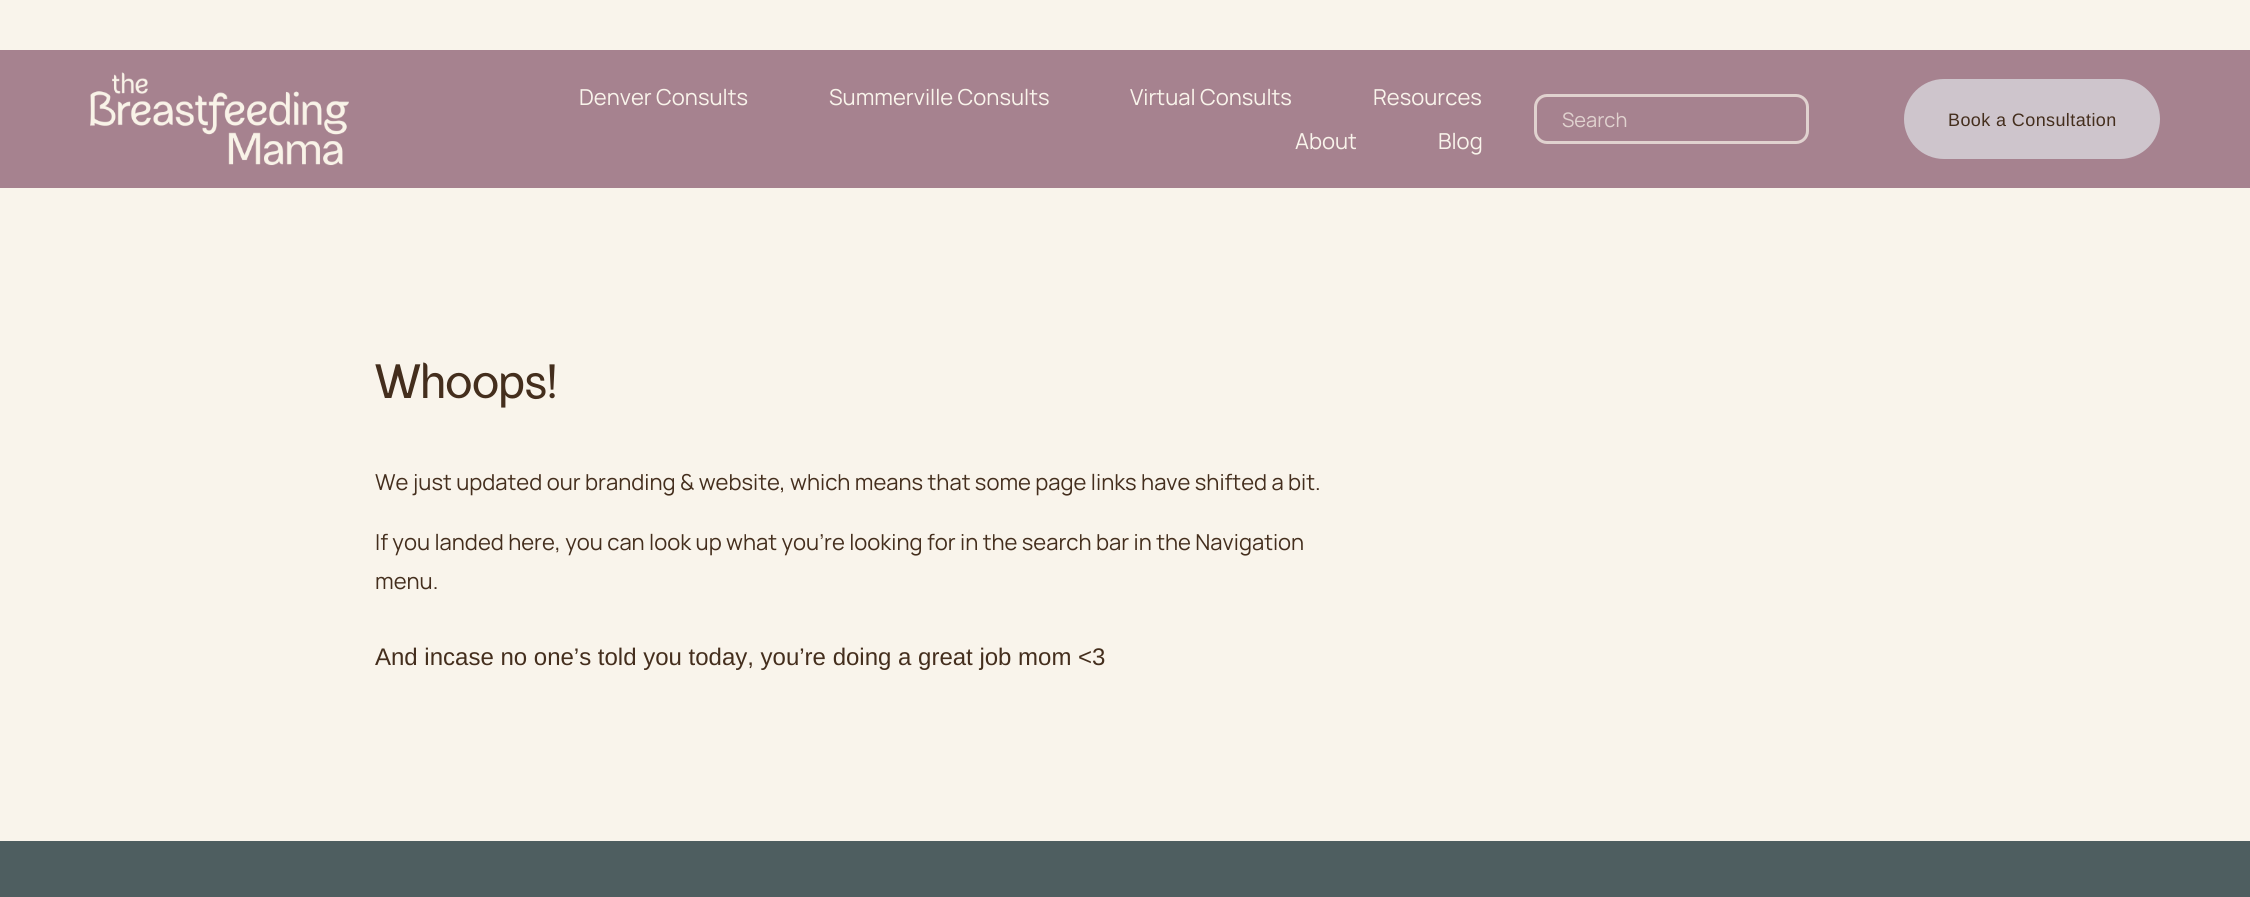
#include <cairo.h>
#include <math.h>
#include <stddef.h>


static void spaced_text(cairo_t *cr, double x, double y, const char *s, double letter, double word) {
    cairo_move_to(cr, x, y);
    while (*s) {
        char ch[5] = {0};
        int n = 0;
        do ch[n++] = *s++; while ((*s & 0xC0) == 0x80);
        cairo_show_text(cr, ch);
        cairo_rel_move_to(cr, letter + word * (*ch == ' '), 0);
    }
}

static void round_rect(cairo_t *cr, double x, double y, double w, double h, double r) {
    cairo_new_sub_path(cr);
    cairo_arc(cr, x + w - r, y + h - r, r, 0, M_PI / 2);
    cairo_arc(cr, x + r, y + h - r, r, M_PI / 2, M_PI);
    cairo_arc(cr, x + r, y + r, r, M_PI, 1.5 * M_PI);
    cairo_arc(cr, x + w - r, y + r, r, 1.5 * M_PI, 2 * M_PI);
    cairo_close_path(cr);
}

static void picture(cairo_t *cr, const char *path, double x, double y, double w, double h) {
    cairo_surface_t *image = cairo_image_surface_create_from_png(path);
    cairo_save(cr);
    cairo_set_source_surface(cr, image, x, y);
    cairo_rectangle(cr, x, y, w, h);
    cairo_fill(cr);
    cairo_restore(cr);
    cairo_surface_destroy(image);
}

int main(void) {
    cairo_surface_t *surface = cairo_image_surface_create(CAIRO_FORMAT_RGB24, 2250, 897);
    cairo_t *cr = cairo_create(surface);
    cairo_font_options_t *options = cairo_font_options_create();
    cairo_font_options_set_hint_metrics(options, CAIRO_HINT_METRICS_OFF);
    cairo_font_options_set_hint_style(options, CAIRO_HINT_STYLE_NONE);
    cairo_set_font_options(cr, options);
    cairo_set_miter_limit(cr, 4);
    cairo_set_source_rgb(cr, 0.976, 0.957, 0.918);
    cairo_paint(cr);
    cairo_set_source_rgb(cr, 0.651, 0.51, 0.561);
    cairo_rectangle(cr, 0, 50, 2250, 138);
    cairo_fill(cr);
    picture(cr, "img1.png", 90, 72, 259, 94);
    cairo_select_font_face(cr, "Manrope", CAIRO_FONT_SLANT_NORMAL, CAIRO_FONT_WEIGHT_NORMAL);
    cairo_set_font_size(cr, 22);
    cairo_set_source_rgb(cr, 0.976, 0.957, 0.918);
    cairo_move_to(cr, 579, 105);
    cairo_show_text(cr, "Denver Consults");
    cairo_move_to(cr, 829, 105);
    cairo_show_text(cr, "Summerville Consults");
    cairo_move_to(cr, 1130, 105);
    cairo_show_text(cr, "Virtual Consults");
    cairo_move_to(cr, 1373, 105);
    cairo_show_text(cr, "Resources");
    cairo_move_to(cr, 1295, 149);
    cairo_show_text(cr, "About");
    cairo_move_to(cr, 1438, 149);
    cairo_show_text(cr, "Blog");
    round_rect(cr, 1535.5, 95.5, 272, 47, 11.5);
    cairo_set_source_rgb(cr, 0.878, 0.824, 0.812);
    cairo_set_line_width(cr, 3);
    cairo_stroke(cr);
    cairo_set_font_size(cr, 20);
    cairo_move_to(cr, 1562, 127);
    cairo_show_text(cr, "Search");
    cairo_set_source_rgb(cr, 0.808, 0.773, 0.8);
    round_rect(cr, 1904, 79, 256, 80, 40);
    cairo_fill(cr);
    cairo_select_font_face(cr, "Liberation Sans", CAIRO_FONT_SLANT_NORMAL, CAIRO_FONT_WEIGHT_NORMAL);
    cairo_set_font_size(cr, 18);
    cairo_set_source_rgb(cr, 0.267, 0.18, 0.114);
    spaced_text(cr, 1948, 126, "Book a Consultation", 0.4, 0);
    cairo_select_font_face(cr, "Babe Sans", CAIRO_FONT_SLANT_NORMAL, CAIRO_FONT_WEIGHT_NORMAL);
    cairo_set_font_size(cr, 52);
    cairo_move_to(cr, 375, 398);
    cairo_show_text(cr, "Whoops!");
    cairo_select_font_face(cr, "Manrope", CAIRO_FONT_SLANT_NORMAL, CAIRO_FONT_WEIGHT_NORMAL);
    cairo_set_font_size(cr, 22);
    cairo_move_to(cr, 375, 490);
    cairo_show_text(cr, "We just updated our branding & website, which means that some page links have shifted a bit.");
    cairo_move_to(cr, 375, 550);
    cairo_show_text(cr, "If you landed here, you can look up what you’re looking for in the search bar in the Navigation");
    cairo_move_to(cr, 375, 589);
    cairo_show_text(cr, "menu.");
    cairo_select_font_face(cr, "Liberation Sans", CAIRO_FONT_SLANT_NORMAL, CAIRO_FONT_WEIGHT_NORMAL);
    cairo_set_font_size(cr, 24);
    cairo_move_to(cr, 375, 665);
    cairo_show_text(cr, "And incase no one’s told you today, you’re doing a great job mom <3");
    cairo_set_source_rgb(cr, 0.306, 0.369, 0.376);
    cairo_rectangle(cr, 0, 841, 2250, 56);
    cairo_fill(cr);
    cairo_surface_write_to_png(surface, "page.png");
    cairo_font_options_destroy(options);
    cairo_destroy(cr);
    cairo_surface_destroy(surface);
    return 0;
}
